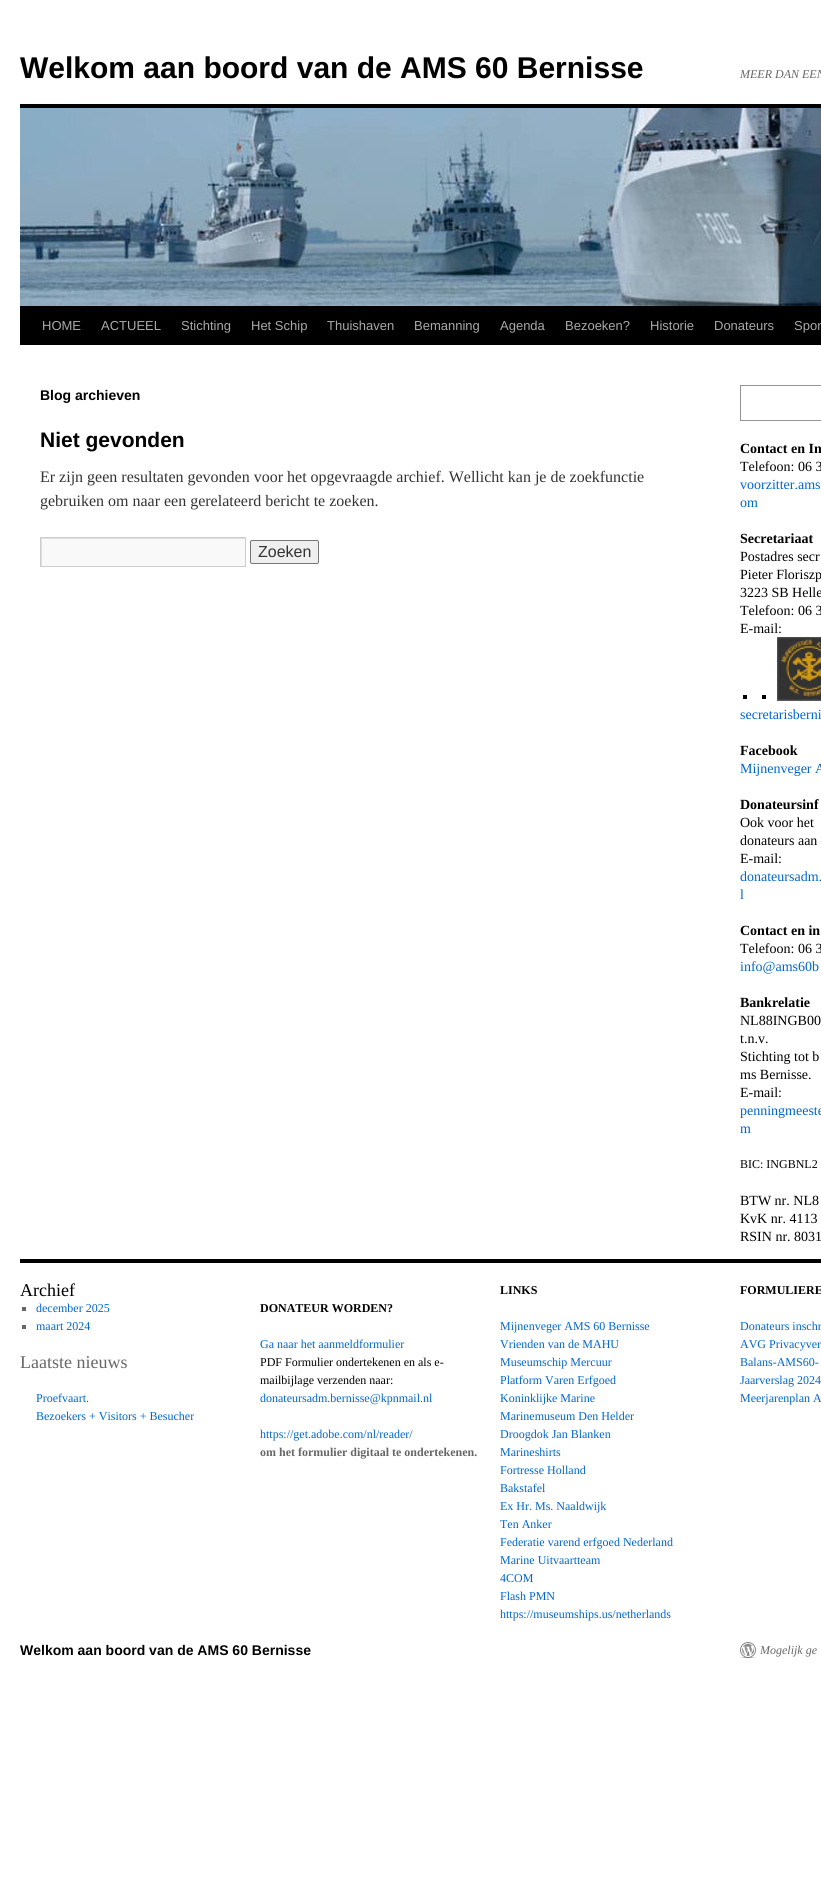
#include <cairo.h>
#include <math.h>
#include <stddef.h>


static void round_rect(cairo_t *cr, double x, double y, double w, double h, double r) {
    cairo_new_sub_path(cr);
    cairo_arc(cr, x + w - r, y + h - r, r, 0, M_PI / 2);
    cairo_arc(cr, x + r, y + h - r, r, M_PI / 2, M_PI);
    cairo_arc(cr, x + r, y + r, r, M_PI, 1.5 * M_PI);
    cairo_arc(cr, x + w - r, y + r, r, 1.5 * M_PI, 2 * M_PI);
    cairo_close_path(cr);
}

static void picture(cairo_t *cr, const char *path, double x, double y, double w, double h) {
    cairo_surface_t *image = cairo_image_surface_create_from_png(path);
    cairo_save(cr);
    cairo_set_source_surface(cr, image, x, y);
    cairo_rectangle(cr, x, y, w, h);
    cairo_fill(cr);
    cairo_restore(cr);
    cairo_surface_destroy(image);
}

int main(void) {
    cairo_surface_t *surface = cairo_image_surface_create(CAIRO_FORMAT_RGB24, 821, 1893);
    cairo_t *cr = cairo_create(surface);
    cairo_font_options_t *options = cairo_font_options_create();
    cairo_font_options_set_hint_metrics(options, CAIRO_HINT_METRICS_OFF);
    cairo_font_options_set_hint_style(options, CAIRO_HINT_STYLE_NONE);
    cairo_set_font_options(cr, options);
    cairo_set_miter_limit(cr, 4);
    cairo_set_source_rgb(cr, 1, 1, 1);
    cairo_paint(cr);
    cairo_select_font_face(cr, "Liberation Sans", CAIRO_FONT_SLANT_NORMAL, CAIRO_FONT_WEIGHT_BOLD);
    cairo_set_font_size(cr, 30);
    cairo_set_source_rgb(cr, 0, 0, 0);
    cairo_move_to(cr, 20, 78);
    cairo_show_text(cr, "Welkom aan boord van de AMS 60 Bernisse");
    cairo_select_font_face(cr, "Liberation Serif", CAIRO_FONT_SLANT_ITALIC, CAIRO_FONT_WEIGHT_NORMAL);
    cairo_set_font_size(cr, 12);
    cairo_set_source_rgb(cr, 0.4, 0.4, 0.4);
    cairo_move_to(cr, 740, 78);
    cairo_show_text(cr, "MEER DAN EEN");
    cairo_set_source_rgb(cr, 0, 0, 0);
    cairo_rectangle(cr, 20, 104, 801, 4);
    cairo_fill(cr);
    cairo_rectangle(cr, 20, 306, 801, 39);
    cairo_fill(cr);
    picture(cr, "img1.png", 20, 108, 801, 198);
    cairo_select_font_face(cr, "Liberation Sans", CAIRO_FONT_SLANT_NORMAL, CAIRO_FONT_WEIGHT_NORMAL);
    cairo_set_font_size(cr, 13);
    cairo_set_source_rgb(cr, 0.667, 0.667, 0.667);
    cairo_move_to(cr, 42, 330);
    cairo_show_text(cr, "HOME");
    cairo_move_to(cr, 101, 330);
    cairo_show_text(cr, "ACTUEEL");
    cairo_move_to(cr, 181, 330);
    cairo_show_text(cr, "Stichting");
    cairo_move_to(cr, 251, 330);
    cairo_show_text(cr, "Het Schip");
    cairo_move_to(cr, 327, 330);
    cairo_show_text(cr, "Thuishaven");
    cairo_move_to(cr, 414, 330);
    cairo_show_text(cr, "Bemanning");
    cairo_move_to(cr, 500, 330);
    cairo_show_text(cr, "Agenda");
    cairo_move_to(cr, 565, 330);
    cairo_show_text(cr, "Bezoeken?");
    cairo_move_to(cr, 650, 330);
    cairo_show_text(cr, "Historie");
    cairo_move_to(cr, 714, 330);
    cairo_show_text(cr, "Donateurs");
    cairo_move_to(cr, 794, 330);
    cairo_show_text(cr, "Spon");
    cairo_select_font_face(cr, "Liberation Sans", CAIRO_FONT_SLANT_NORMAL, CAIRO_FONT_WEIGHT_BOLD);
    cairo_set_font_size(cr, 14);
    cairo_set_source_rgb(cr, 0, 0, 0);
    cairo_move_to(cr, 40, 400);
    cairo_show_text(cr, "Blog archieven");
    cairo_set_font_size(cr, 21);
    cairo_move_to(cr, 40, 447);
    cairo_show_text(cr, "Niet gevonden");
    cairo_select_font_face(cr, "Liberation Serif", CAIRO_FONT_SLANT_NORMAL, CAIRO_FONT_WEIGHT_NORMAL);
    cairo_set_font_size(cr, 16);
    cairo_set_source_rgb(cr, 0.2, 0.2, 0.2);
    cairo_move_to(cr, 40, 482);
    cairo_show_text(cr, "Er zijn geen resultaten gevonden voor het opgevraagde archief. Wellicht kan je de zoekfunctie");
    cairo_move_to(cr, 40, 506);
    cairo_show_text(cr, "gebruiken om naar een gerelateerd bericht te zoeken.");
    cairo_set_source_rgb(cr, 0.976, 0.976, 0.976);
    cairo_rectangle(cr, 42, 539, 203, 27);
    cairo_fill(cr);
    cairo_save(cr);
    cairo_rectangle(cr, 41, 538, 204, 28);
    cairo_clip(cr);
    cairo_set_source_rgb(cr, 0.878, 0.878, 0.878);
    cairo_set_fill_rule(cr, CAIRO_FILL_RULE_EVEN_ODD);
    cairo_new_path(cr);
    cairo_move_to(cr, -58, 439);
    cairo_line_to(cr, 344, 439);
    cairo_line_to(cr, 344, 665);
    cairo_line_to(cr, -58, 665);
    cairo_close_path(cr);
    cairo_move_to(cr, 42, 539);
    cairo_line_to(cr, 246, 539);
    cairo_line_to(cr, 246, 567);
    cairo_line_to(cr, 42, 567);
    cairo_close_path(cr);
    cairo_fill(cr);
    cairo_restore(cr);
    cairo_rectangle(cr, 40.5, 537.5, 205, 29);
    cairo_set_source_rgb(cr, 0.8, 0.8, 0.8);
    cairo_set_line_width(cr, 1);
    cairo_stroke(cr);
    cairo_set_source_rgb(cr, 0.937, 0.937, 0.937);
    round_rect(cr, 250.5, 540.5, 68, 23, 1.5);
    cairo_fill_preserve(cr);
    cairo_set_source_rgb(cr, 0.463, 0.463, 0.463);
    cairo_stroke(cr);
    cairo_select_font_face(cr, "Liberation Sans", CAIRO_FONT_SLANT_NORMAL, CAIRO_FONT_WEIGHT_NORMAL);
    cairo_set_source_rgb(cr, 0.2, 0.2, 0.2);
    cairo_move_to(cr, 258, 557);
    cairo_show_text(cr, "Zoeken");
    cairo_rectangle(cr, 740.5, 385.5, 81, 35);
    cairo_set_source_rgb(cr, 0.58, 0.58, 0.58);
    cairo_stroke(cr);
    cairo_select_font_face(cr, "Liberation Serif", CAIRO_FONT_SLANT_NORMAL, CAIRO_FONT_WEIGHT_BOLD);
    cairo_set_font_size(cr, 14);
    cairo_set_source_rgb(cr, 0, 0, 0);
    cairo_move_to(cr, 740, 453);
    cairo_show_text(cr, "Contact en In");
    cairo_select_font_face(cr, "Liberation Serif", CAIRO_FONT_SLANT_NORMAL, CAIRO_FONT_WEIGHT_NORMAL);
    cairo_move_to(cr, 740, 471);
    cairo_show_text(cr, "Telefoon: 06 3");
    cairo_set_source_rgb(cr, 0, 0.4, 0.8);
    cairo_move_to(cr, 740, 489);
    cairo_show_text(cr, "voorzitter.ams");
    cairo_move_to(cr, 740, 507);
    cairo_show_text(cr, "om");
    cairo_select_font_face(cr, "Liberation Serif", CAIRO_FONT_SLANT_NORMAL, CAIRO_FONT_WEIGHT_BOLD);
    cairo_set_source_rgb(cr, 0, 0, 0);
    cairo_move_to(cr, 740, 543);
    cairo_show_text(cr, "Secretariaat");
    cairo_select_font_face(cr, "Liberation Serif", CAIRO_FONT_SLANT_NORMAL, CAIRO_FONT_WEIGHT_NORMAL);
    cairo_move_to(cr, 740, 561);
    cairo_show_text(cr, "Postadres secr");
    cairo_move_to(cr, 740, 579);
    cairo_show_text(cr, "Pieter Floriszp");
    cairo_move_to(cr, 740, 597);
    cairo_show_text(cr, "3223 SB Helle");
    cairo_move_to(cr, 740, 615);
    cairo_show_text(cr, "Telefoon: 06 3");
    cairo_move_to(cr, 740, 633);
    cairo_show_text(cr, "E-mail:");
    cairo_rectangle(cr, 743, 695, 4, 4);
    cairo_fill(cr);
    cairo_rectangle(cr, 762, 695, 4, 4);
    cairo_fill(cr);
    picture(cr, "img2.png", 777, 637, 44, 64);
    cairo_set_source_rgb(cr, 0, 0.4, 0.8);
    cairo_move_to(cr, 740, 719);
    cairo_show_text(cr, "secretarisberni");
    cairo_select_font_face(cr, "Liberation Serif", CAIRO_FONT_SLANT_NORMAL, CAIRO_FONT_WEIGHT_BOLD);
    cairo_set_source_rgb(cr, 0, 0, 0);
    cairo_move_to(cr, 740, 755);
    cairo_show_text(cr, "Facebook");
    cairo_select_font_face(cr, "Liberation Serif", CAIRO_FONT_SLANT_NORMAL, CAIRO_FONT_WEIGHT_NORMAL);
    cairo_set_source_rgb(cr, 0, 0.4, 0.8);
    cairo_move_to(cr, 740, 773);
    cairo_show_text(cr, "Mijnenveger A");
    cairo_select_font_face(cr, "Liberation Serif", CAIRO_FONT_SLANT_NORMAL, CAIRO_FONT_WEIGHT_BOLD);
    cairo_set_source_rgb(cr, 0, 0, 0);
    cairo_move_to(cr, 740, 809);
    cairo_show_text(cr, "Donateursinf");
    cairo_select_font_face(cr, "Liberation Serif", CAIRO_FONT_SLANT_NORMAL, CAIRO_FONT_WEIGHT_NORMAL);
    cairo_move_to(cr, 740, 827);
    cairo_show_text(cr, "Ook voor het");
    cairo_move_to(cr, 740, 845);
    cairo_show_text(cr, "donateurs aan");
    cairo_move_to(cr, 740, 863);
    cairo_show_text(cr, "E-mail:");
    cairo_set_source_rgb(cr, 0, 0.4, 0.8);
    cairo_move_to(cr, 740, 881);
    cairo_show_text(cr, "donateursadm.");
    cairo_move_to(cr, 740, 899);
    cairo_show_text(cr, "l");
    cairo_select_font_face(cr, "Liberation Serif", CAIRO_FONT_SLANT_NORMAL, CAIRO_FONT_WEIGHT_BOLD);
    cairo_set_source_rgb(cr, 0, 0, 0);
    cairo_move_to(cr, 740, 935);
    cairo_show_text(cr, "Contact en in");
    cairo_select_font_face(cr, "Liberation Serif", CAIRO_FONT_SLANT_NORMAL, CAIRO_FONT_WEIGHT_NORMAL);
    cairo_move_to(cr, 740, 953);
    cairo_show_text(cr, "Telefoon: 06 3");
    cairo_set_source_rgb(cr, 0, 0.4, 0.8);
    cairo_move_to(cr, 740, 971);
    cairo_show_text(cr, "info@ams60b");
    cairo_select_font_face(cr, "Liberation Serif", CAIRO_FONT_SLANT_NORMAL, CAIRO_FONT_WEIGHT_BOLD);
    cairo_set_source_rgb(cr, 0, 0, 0);
    cairo_move_to(cr, 740, 1007);
    cairo_show_text(cr, "Bankrelatie");
    cairo_select_font_face(cr, "Liberation Serif", CAIRO_FONT_SLANT_NORMAL, CAIRO_FONT_WEIGHT_NORMAL);
    cairo_move_to(cr, 740, 1025);
    cairo_show_text(cr, "NL88INGB00");
    cairo_move_to(cr, 740, 1043);
    cairo_show_text(cr, "t.n.v.");
    cairo_move_to(cr, 740, 1061);
    cairo_show_text(cr, "Stichting tot b");
    cairo_move_to(cr, 740, 1079);
    cairo_show_text(cr, "ms Bernisse.");
    cairo_move_to(cr, 740, 1097);
    cairo_show_text(cr, "E-mail:");
    cairo_set_source_rgb(cr, 0, 0.4, 0.8);
    cairo_move_to(cr, 740, 1115);
    cairo_show_text(cr, "penningmeeste");
    cairo_move_to(cr, 740, 1133);
    cairo_show_text(cr, "m");
    cairo_set_font_size(cr, 12);
    cairo_set_source_rgb(cr, 0, 0, 0);
    cairo_move_to(cr, 740, 1168);
    cairo_show_text(cr, "BIC: INGBNL2");
    cairo_set_font_size(cr, 14);
    cairo_move_to(cr, 740, 1205);
    cairo_show_text(cr, "BTW nr. NL8");
    cairo_move_to(cr, 740, 1223);
    cairo_show_text(cr, "KvK nr. 4113");
    cairo_move_to(cr, 740, 1241);
    cairo_show_text(cr, "RSIN nr. 8031");
    cairo_rectangle(cr, 20, 1259, 801, 4);
    cairo_fill(cr);
    cairo_set_font_size(cr, 18);
    cairo_move_to(cr, 20, 1296);
    cairo_show_text(cr, "Archief");
    cairo_set_source_rgb(cr, 0.4, 0.4, 0.4);
    cairo_rectangle(cr, 22, 1307, 4, 4);
    cairo_fill(cr);
    cairo_set_font_size(cr, 12);
    cairo_set_source_rgb(cr, 0, 0.4, 0.8);
    cairo_move_to(cr, 36, 1312);
    cairo_show_text(cr, "december 2025");
    cairo_set_source_rgb(cr, 0.4, 0.4, 0.4);
    cairo_rectangle(cr, 22, 1325, 4, 4);
    cairo_fill(cr);
    cairo_set_source_rgb(cr, 0, 0.4, 0.8);
    cairo_move_to(cr, 36, 1330);
    cairo_show_text(cr, "maart 2024");
    cairo_set_font_size(cr, 18);
    cairo_set_source_rgb(cr, 0.4, 0.4, 0.4);
    cairo_move_to(cr, 20, 1368);
    cairo_show_text(cr, "Laatste nieuws");
    cairo_set_font_size(cr, 12);
    cairo_set_source_rgb(cr, 0, 0.4, 0.8);
    cairo_move_to(cr, 36, 1402);
    cairo_show_text(cr, "Proefvaart.");
    cairo_move_to(cr, 36, 1420);
    cairo_show_text(cr, "Bezoekers + Visitors + Besucher");
    cairo_select_font_face(cr, "Liberation Serif", CAIRO_FONT_SLANT_NORMAL, CAIRO_FONT_WEIGHT_BOLD);
    cairo_set_source_rgb(cr, 0, 0, 0);
    cairo_move_to(cr, 260, 1312);
    cairo_show_text(cr, "DONATEUR WORDEN?");
    cairo_select_font_face(cr, "Liberation Serif", CAIRO_FONT_SLANT_NORMAL, CAIRO_FONT_WEIGHT_NORMAL);
    cairo_set_source_rgb(cr, 0, 0.4, 0.8);
    cairo_move_to(cr, 260, 1348);
    cairo_show_text(cr, "Ga naar het aanmeldformulier");
    cairo_set_source_rgb(cr, 0, 0, 0);
    cairo_move_to(cr, 260, 1366);
    cairo_show_text(cr, "PDF Formulier ondertekenen en als e-");
    cairo_move_to(cr, 260, 1384);
    cairo_show_text(cr, "mailbijlage verzenden naar:");
    cairo_set_source_rgb(cr, 0, 0.4, 0.8);
    cairo_move_to(cr, 260, 1402);
    cairo_show_text(cr, "donateursadm.bernisse@kpnmail.nl");
    cairo_move_to(cr, 260, 1438);
    cairo_show_text(cr, "https://get.adobe.com/nl/reader/");
    cairo_select_font_face(cr, "Liberation Serif", CAIRO_FONT_SLANT_NORMAL, CAIRO_FONT_WEIGHT_BOLD);
    cairo_set_source_rgb(cr, 0.4, 0.4, 0.4);
    cairo_move_to(cr, 260, 1456);
    cairo_show_text(cr, "om het formulier digitaal te ondertekenen.");
    cairo_set_source_rgb(cr, 0, 0, 0);
    cairo_move_to(cr, 500, 1294);
    cairo_show_text(cr, "LINKS");
    cairo_select_font_face(cr, "Liberation Serif", CAIRO_FONT_SLANT_NORMAL, CAIRO_FONT_WEIGHT_NORMAL);
    cairo_set_source_rgb(cr, 0, 0.4, 0.8);
    cairo_move_to(cr, 500, 1330);
    cairo_show_text(cr, "Mijnenveger AMS 60 Bernisse");
    cairo_move_to(cr, 500, 1348);
    cairo_show_text(cr, "Vrienden van de MAHU");
    cairo_move_to(cr, 500, 1366);
    cairo_show_text(cr, "Museumschip Mercuur");
    cairo_move_to(cr, 500, 1384);
    cairo_show_text(cr, "Platform Varen Erfgoed");
    cairo_move_to(cr, 500, 1402);
    cairo_show_text(cr, "Koninklijke Marine");
    cairo_move_to(cr, 500, 1420);
    cairo_show_text(cr, "Marinemuseum Den Helder");
    cairo_move_to(cr, 500, 1438);
    cairo_show_text(cr, "Droogdok Jan Blanken");
    cairo_move_to(cr, 500, 1456);
    cairo_show_text(cr, "Marineshirts");
    cairo_move_to(cr, 500, 1474);
    cairo_show_text(cr, "Fortresse Holland");
    cairo_move_to(cr, 500, 1492);
    cairo_show_text(cr, "Bakstafel");
    cairo_move_to(cr, 500, 1510);
    cairo_show_text(cr, "Ex Hr. Ms. Naaldwijk");
    cairo_move_to(cr, 500, 1528);
    cairo_show_text(cr, "Ten Anker");
    cairo_move_to(cr, 500, 1546);
    cairo_show_text(cr, "Federatie varend erfgoed Nederland");
    cairo_move_to(cr, 500, 1564);
    cairo_show_text(cr, "Marine Uitvaartteam");
    cairo_move_to(cr, 500, 1582);
    cairo_show_text(cr, "4COM");
    cairo_move_to(cr, 500, 1600);
    cairo_show_text(cr, "Flash PMN");
    cairo_move_to(cr, 500, 1618);
    cairo_show_text(cr, "https://museumships.us/netherlands");
    cairo_select_font_face(cr, "Liberation Serif", CAIRO_FONT_SLANT_NORMAL, CAIRO_FONT_WEIGHT_BOLD);
    cairo_set_source_rgb(cr, 0, 0, 0);
    cairo_move_to(cr, 740, 1294);
    cairo_show_text(cr, "FORMULIERE");
    cairo_select_font_face(cr, "Liberation Serif", CAIRO_FONT_SLANT_NORMAL, CAIRO_FONT_WEIGHT_NORMAL);
    cairo_set_source_rgb(cr, 0, 0.4, 0.8);
    cairo_move_to(cr, 740, 1330);
    cairo_show_text(cr, "Donateurs inschr");
    cairo_move_to(cr, 740, 1348);
    cairo_show_text(cr, "AVG Privacyver");
    cairo_move_to(cr, 740, 1366);
    cairo_show_text(cr, "Balans-AMS60-");
    cairo_move_to(cr, 740, 1384);
    cairo_show_text(cr, "Jaarverslag 2024");
    cairo_move_to(cr, 740, 1402);
    cairo_show_text(cr, "Meerjarenplan A");
    cairo_select_font_face(cr, "Liberation Sans", CAIRO_FONT_SLANT_NORMAL, CAIRO_FONT_WEIGHT_BOLD);
    cairo_set_font_size(cr, 14);
    cairo_set_source_rgb(cr, 0, 0, 0);
    cairo_move_to(cr, 20, 1655);
    cairo_show_text(cr, "Welkom aan boord van de AMS 60 Bernisse");
    picture(cr, "img3.png", 740, 1642, 16, 16);
    cairo_select_font_face(cr, "Liberation Serif", CAIRO_FONT_SLANT_ITALIC, CAIRO_FONT_WEIGHT_NORMAL);
    cairo_set_font_size(cr, 12);
    cairo_set_source_rgb(cr, 0.4, 0.4, 0.4);
    cairo_move_to(cr, 760, 1654);
    cairo_show_text(cr, "Mogelijk ge");
    cairo_surface_write_to_png(surface, "page.png");
    cairo_font_options_destroy(options);
    cairo_destroy(cr);
    cairo_surface_destroy(surface);
    return 0;
}
